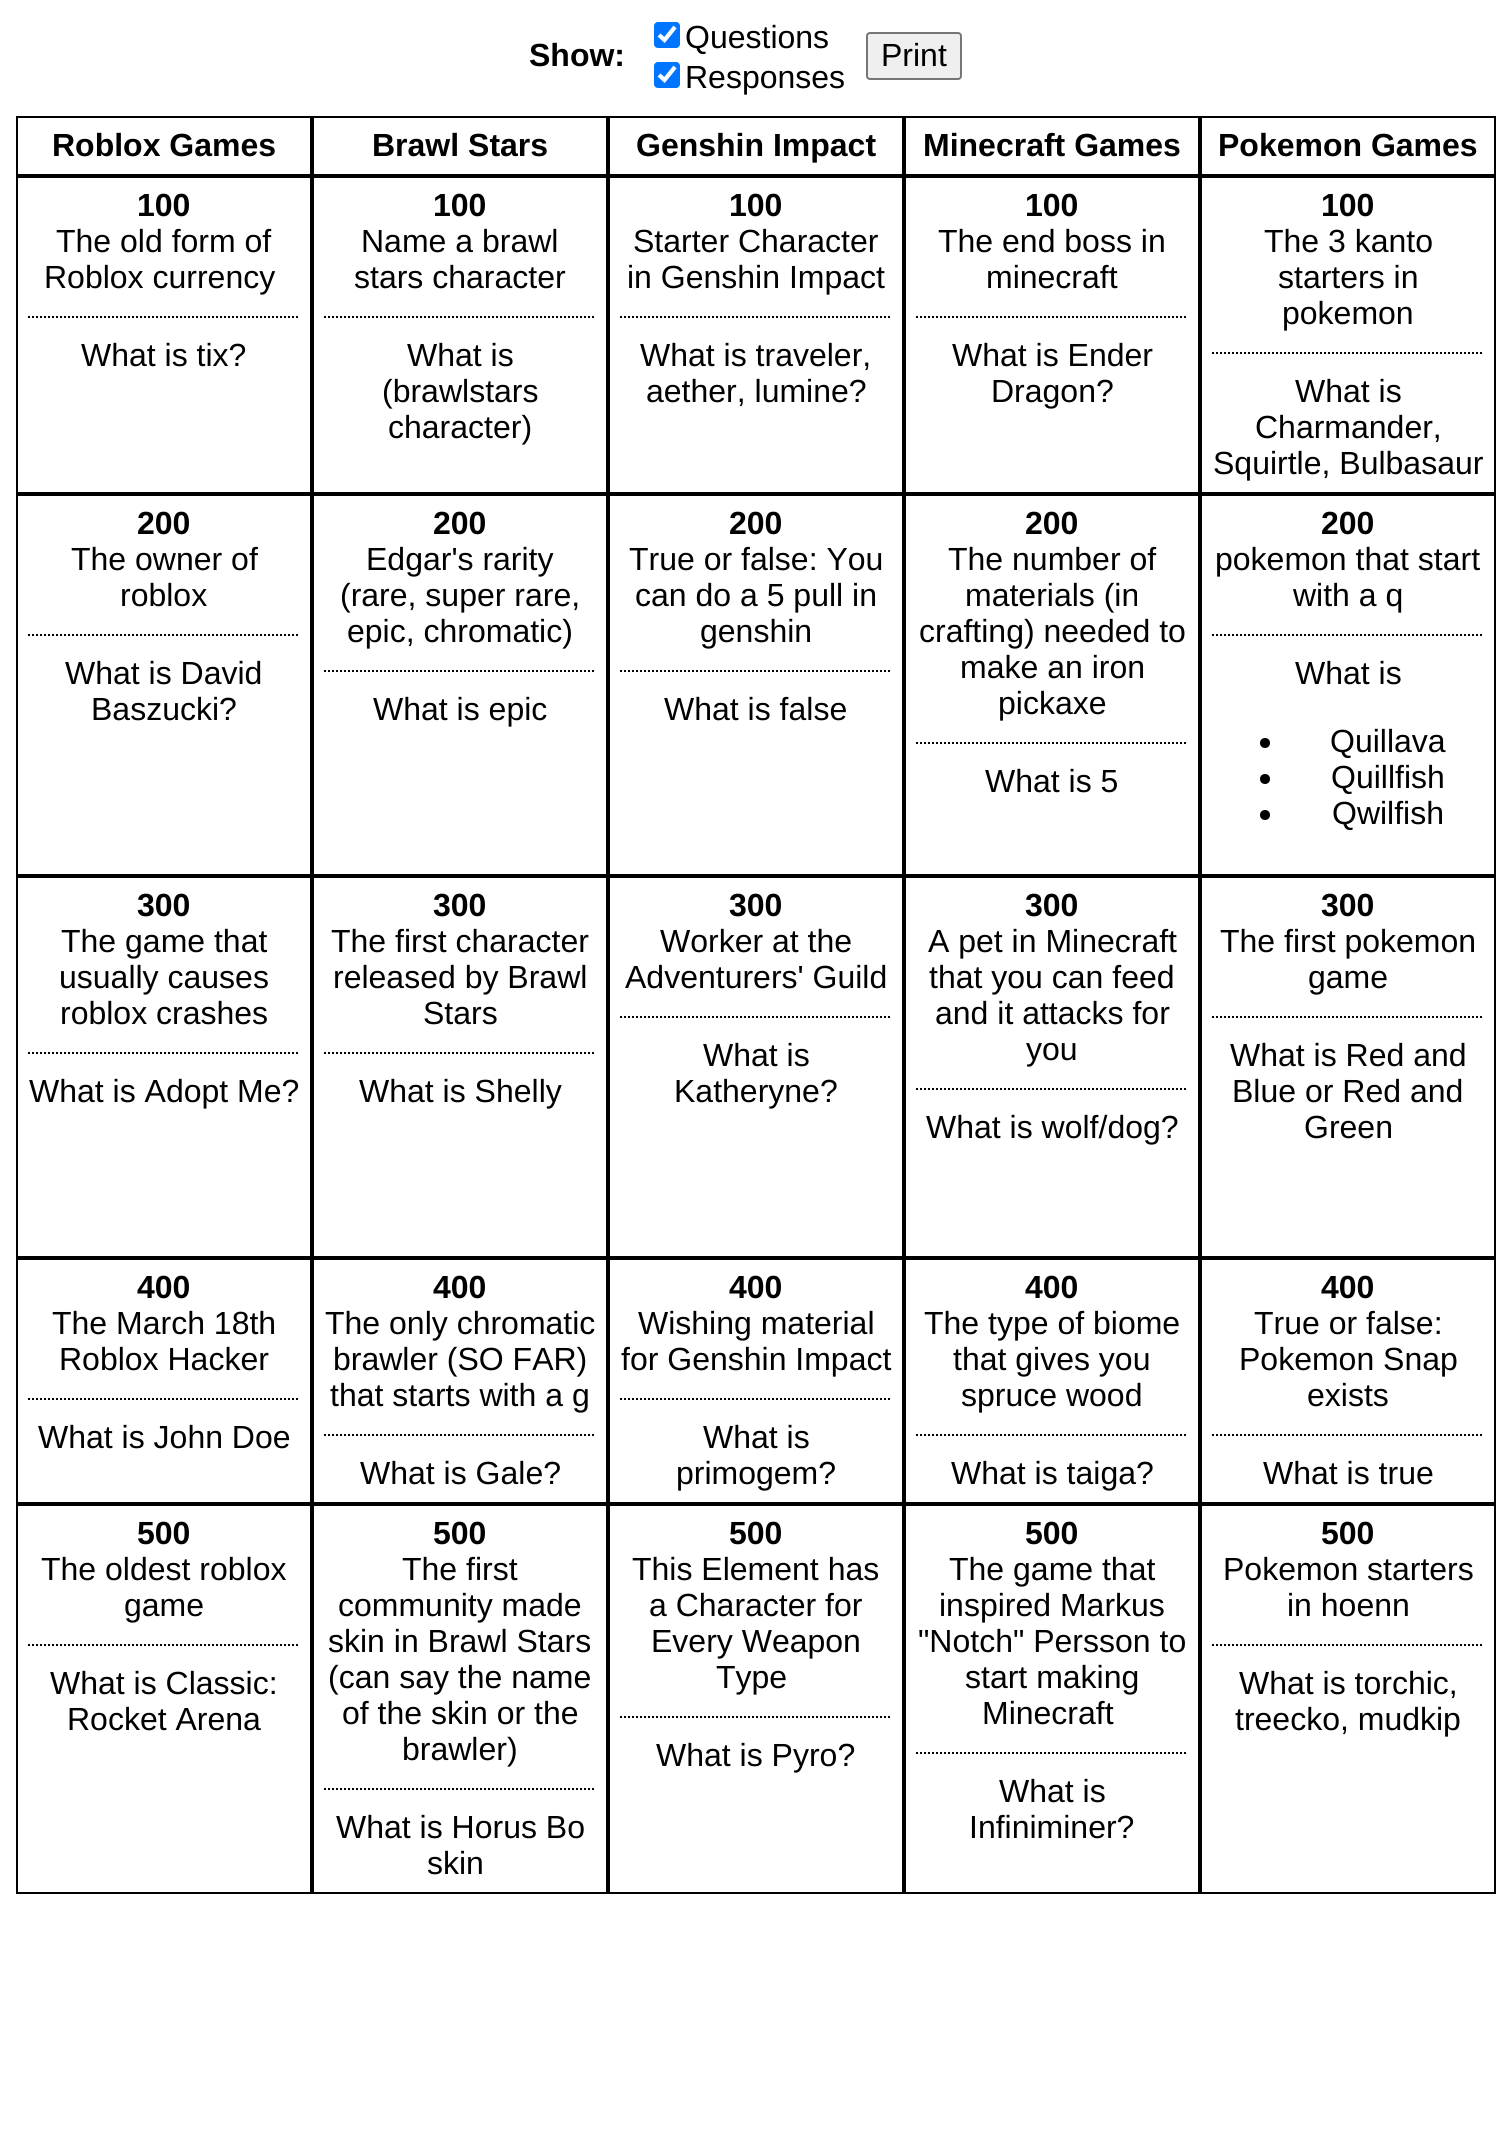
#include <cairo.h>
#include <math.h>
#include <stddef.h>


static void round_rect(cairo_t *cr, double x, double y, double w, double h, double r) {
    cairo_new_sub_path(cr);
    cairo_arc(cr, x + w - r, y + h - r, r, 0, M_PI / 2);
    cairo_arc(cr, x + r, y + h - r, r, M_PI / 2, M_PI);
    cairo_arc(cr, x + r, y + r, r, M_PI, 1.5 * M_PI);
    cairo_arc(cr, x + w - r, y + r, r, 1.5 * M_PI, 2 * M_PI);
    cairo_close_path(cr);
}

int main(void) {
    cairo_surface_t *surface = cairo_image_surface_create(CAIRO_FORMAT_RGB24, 1512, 2142);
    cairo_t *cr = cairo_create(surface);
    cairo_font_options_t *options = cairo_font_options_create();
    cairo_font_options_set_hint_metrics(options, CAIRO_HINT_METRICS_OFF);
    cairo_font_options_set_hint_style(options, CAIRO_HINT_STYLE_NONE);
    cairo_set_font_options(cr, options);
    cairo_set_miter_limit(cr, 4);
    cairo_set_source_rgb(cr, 1, 1, 1);
    cairo_paint(cr);
    cairo_select_font_face(cr, "Liberation Sans", CAIRO_FONT_SLANT_NORMAL, CAIRO_FONT_WEIGHT_BOLD);
    cairo_set_font_size(cr, 32);
    cairo_set_source_rgb(cr, 0, 0, 0);
    cairo_move_to(cr, 529, 66);
    cairo_show_text(cr, "Show:");
    cairo_set_source_rgb(cr, 0, 0.459, 1);
    round_rect(cr, 654, 22, 26, 26, 4);
    cairo_fill(cr);
    cairo_new_path(cr);
    cairo_move_to(cr, 659, 35);
    cairo_line_to(cr, 664.5, 40);
    cairo_line_to(cr, 675, 27);
    cairo_set_source_rgb(cr, 1, 1, 1);
    cairo_set_line_width(cr, 4.2);
    cairo_stroke(cr);
    cairo_select_font_face(cr, "Liberation Sans", CAIRO_FONT_SLANT_NORMAL, CAIRO_FONT_WEIGHT_NORMAL);
    cairo_set_source_rgb(cr, 0, 0, 0);
    cairo_move_to(cr, 685, 48);
    cairo_show_text(cr, "Questions");
    cairo_set_source_rgb(cr, 0, 0.459, 1);
    round_rect(cr, 654, 62, 26, 26, 4);
    cairo_fill(cr);
    cairo_new_path(cr);
    cairo_move_to(cr, 659, 75);
    cairo_line_to(cr, 664.5, 80);
    cairo_line_to(cr, 675, 67);
    cairo_set_source_rgb(cr, 1, 1, 1);
    cairo_stroke(cr);
    cairo_set_source_rgb(cr, 0, 0, 0);
    cairo_move_to(cr, 685, 88);
    cairo_show_text(cr, "Responses");
    cairo_set_source_rgb(cr, 0.937, 0.937, 0.937);
    round_rect(cr, 867, 33, 94, 46, 3);
    cairo_fill_preserve(cr);
    cairo_set_source_rgb(cr, 0.463, 0.463, 0.463);
    cairo_set_line_width(cr, 2);
    cairo_stroke(cr);
    cairo_set_source_rgb(cr, 0, 0, 0);
    cairo_move_to(cr, 881, 66);
    cairo_show_text(cr, "Print");
    cairo_rectangle(cr, 17, 117, 294, 58);
    cairo_stroke(cr);
    cairo_select_font_face(cr, "Liberation Sans", CAIRO_FONT_SLANT_NORMAL, CAIRO_FONT_WEIGHT_BOLD);
    cairo_move_to(cr, 52, 156);
    cairo_show_text(cr, "Roblox Games");
    cairo_rectangle(cr, 313, 117, 294, 58);
    cairo_stroke(cr);
    cairo_move_to(cr, 372, 156);
    cairo_show_text(cr, "Brawl Stars");
    cairo_rectangle(cr, 609, 117, 294, 58);
    cairo_stroke(cr);
    cairo_move_to(cr, 636, 156);
    cairo_show_text(cr, "Genshin Impact");
    cairo_rectangle(cr, 905, 117, 294, 58);
    cairo_stroke(cr);
    cairo_move_to(cr, 923, 156);
    cairo_show_text(cr, "Minecraft Games");
    cairo_rectangle(cr, 1201, 117, 294, 58);
    cairo_stroke(cr);
    cairo_move_to(cr, 1218, 156);
    cairo_show_text(cr, "Pokemon Games");
    cairo_rectangle(cr, 17, 177, 294, 316);
    cairo_stroke(cr);
    cairo_move_to(cr, 137, 216);
    cairo_show_text(cr, "100");
    cairo_select_font_face(cr, "Liberation Sans", CAIRO_FONT_SLANT_NORMAL, CAIRO_FONT_WEIGHT_NORMAL);
    cairo_move_to(cr, 56, 252);
    cairo_show_text(cr, "The old form of");
    cairo_move_to(cr, 44, 288);
    cairo_show_text(cr, "Roblox currency");
    cairo_new_path(cr);
    cairo_move_to(cr, 28, 317);
    cairo_line_to(cr, 300, 317);
    cairo_set_dash(cr, (double[]){2, 2}, 2, 0);
    cairo_stroke(cr);
    cairo_move_to(cr, 81, 366);
    cairo_show_text(cr, "What is tix?");
    cairo_rectangle(cr, 313, 177, 294, 316);
    cairo_set_dash(cr, NULL, 0, 0);
    cairo_stroke(cr);
    cairo_select_font_face(cr, "Liberation Sans", CAIRO_FONT_SLANT_NORMAL, CAIRO_FONT_WEIGHT_BOLD);
    cairo_move_to(cr, 433, 216);
    cairo_show_text(cr, "100");
    cairo_select_font_face(cr, "Liberation Sans", CAIRO_FONT_SLANT_NORMAL, CAIRO_FONT_WEIGHT_NORMAL);
    cairo_move_to(cr, 361, 252);
    cairo_show_text(cr, "Name a brawl");
    cairo_move_to(cr, 354, 288);
    cairo_show_text(cr, "stars character");
    cairo_new_path(cr);
    cairo_move_to(cr, 324, 317);
    cairo_line_to(cr, 596, 317);
    cairo_set_dash(cr, (double[]){2, 2}, 2, 0);
    cairo_stroke(cr);
    cairo_move_to(cr, 407, 366);
    cairo_show_text(cr, "What is");
    cairo_move_to(cr, 382, 402);
    cairo_show_text(cr, "(brawlstars");
    cairo_move_to(cr, 388, 438);
    cairo_show_text(cr, "character)");
    cairo_rectangle(cr, 609, 177, 294, 316);
    cairo_set_dash(cr, NULL, 0, 0);
    cairo_stroke(cr);
    cairo_select_font_face(cr, "Liberation Sans", CAIRO_FONT_SLANT_NORMAL, CAIRO_FONT_WEIGHT_BOLD);
    cairo_move_to(cr, 729, 216);
    cairo_show_text(cr, "100");
    cairo_select_font_face(cr, "Liberation Sans", CAIRO_FONT_SLANT_NORMAL, CAIRO_FONT_WEIGHT_NORMAL);
    cairo_move_to(cr, 633, 252);
    cairo_show_text(cr, "Starter Character");
    cairo_move_to(cr, 627, 288);
    cairo_show_text(cr, "in Genshin Impact");
    cairo_new_path(cr);
    cairo_move_to(cr, 620, 317);
    cairo_line_to(cr, 892, 317);
    cairo_set_dash(cr, (double[]){2, 2}, 2, 0);
    cairo_stroke(cr);
    cairo_move_to(cr, 640, 366);
    cairo_show_text(cr, "What is traveler,");
    cairo_move_to(cr, 646, 402);
    cairo_show_text(cr, "aether, lumine?");
    cairo_rectangle(cr, 905, 177, 294, 316);
    cairo_set_dash(cr, NULL, 0, 0);
    cairo_stroke(cr);
    cairo_select_font_face(cr, "Liberation Sans", CAIRO_FONT_SLANT_NORMAL, CAIRO_FONT_WEIGHT_BOLD);
    cairo_move_to(cr, 1025, 216);
    cairo_show_text(cr, "100");
    cairo_select_font_face(cr, "Liberation Sans", CAIRO_FONT_SLANT_NORMAL, CAIRO_FONT_WEIGHT_NORMAL);
    cairo_move_to(cr, 938, 252);
    cairo_show_text(cr, "The end boss in");
    cairo_move_to(cr, 986, 288);
    cairo_show_text(cr, "minecraft");
    cairo_new_path(cr);
    cairo_move_to(cr, 916, 317);
    cairo_line_to(cr, 1188, 317);
    cairo_set_dash(cr, (double[]){2, 2}, 2, 0);
    cairo_stroke(cr);
    cairo_move_to(cr, 952, 366);
    cairo_show_text(cr, "What is Ender");
    cairo_move_to(cr, 991, 402);
    cairo_show_text(cr, "Dragon?");
    cairo_rectangle(cr, 1201, 177, 294, 316);
    cairo_set_dash(cr, NULL, 0, 0);
    cairo_stroke(cr);
    cairo_select_font_face(cr, "Liberation Sans", CAIRO_FONT_SLANT_NORMAL, CAIRO_FONT_WEIGHT_BOLD);
    cairo_move_to(cr, 1321, 216);
    cairo_show_text(cr, "100");
    cairo_select_font_face(cr, "Liberation Sans", CAIRO_FONT_SLANT_NORMAL, CAIRO_FONT_WEIGHT_NORMAL);
    cairo_move_to(cr, 1264, 252);
    cairo_show_text(cr, "The 3 kanto");
    cairo_move_to(cr, 1278, 288);
    cairo_show_text(cr, "starters in");
    cairo_move_to(cr, 1282, 324);
    cairo_show_text(cr, "pokemon");
    cairo_new_path(cr);
    cairo_move_to(cr, 1212, 353);
    cairo_line_to(cr, 1484, 353);
    cairo_set_dash(cr, (double[]){2, 2}, 2, 0);
    cairo_stroke(cr);
    cairo_move_to(cr, 1295, 402);
    cairo_show_text(cr, "What is");
    cairo_move_to(cr, 1255, 438);
    cairo_show_text(cr, "Charmander,");
    cairo_move_to(cr, 1213, 474);
    cairo_show_text(cr, "Squirtle, Bulbasaur");
    cairo_rectangle(cr, 17, 495, 294, 380);
    cairo_set_dash(cr, NULL, 0, 0);
    cairo_stroke(cr);
    cairo_select_font_face(cr, "Liberation Sans", CAIRO_FONT_SLANT_NORMAL, CAIRO_FONT_WEIGHT_BOLD);
    cairo_move_to(cr, 137, 534);
    cairo_show_text(cr, "200");
    cairo_select_font_face(cr, "Liberation Sans", CAIRO_FONT_SLANT_NORMAL, CAIRO_FONT_WEIGHT_NORMAL);
    cairo_move_to(cr, 71, 570);
    cairo_show_text(cr, "The owner of");
    cairo_move_to(cr, 120, 606);
    cairo_show_text(cr, "roblox");
    cairo_new_path(cr);
    cairo_move_to(cr, 28, 635);
    cairo_line_to(cr, 300, 635);
    cairo_set_dash(cr, (double[]){2, 2}, 2, 0);
    cairo_stroke(cr);
    cairo_move_to(cr, 65, 684);
    cairo_show_text(cr, "What is David");
    cairo_move_to(cr, 91, 720);
    cairo_show_text(cr, "Baszucki?");
    cairo_rectangle(cr, 313, 495, 294, 380);
    cairo_set_dash(cr, NULL, 0, 0);
    cairo_stroke(cr);
    cairo_select_font_face(cr, "Liberation Sans", CAIRO_FONT_SLANT_NORMAL, CAIRO_FONT_WEIGHT_BOLD);
    cairo_move_to(cr, 433, 534);
    cairo_show_text(cr, "200");
    cairo_select_font_face(cr, "Liberation Sans", CAIRO_FONT_SLANT_NORMAL, CAIRO_FONT_WEIGHT_NORMAL);
    cairo_move_to(cr, 366, 570);
    cairo_show_text(cr, "Edgar's rarity");
    cairo_move_to(cr, 340, 606);
    cairo_show_text(cr, "(rare, super rare,");
    cairo_move_to(cr, 347, 642);
    cairo_show_text(cr, "epic, chromatic)");
    cairo_new_path(cr);
    cairo_move_to(cr, 324, 671);
    cairo_line_to(cr, 596, 671);
    cairo_set_dash(cr, (double[]){2, 2}, 2, 0);
    cairo_stroke(cr);
    cairo_move_to(cr, 373, 720);
    cairo_show_text(cr, "What is epic");
    cairo_rectangle(cr, 609, 495, 294, 380);
    cairo_set_dash(cr, NULL, 0, 0);
    cairo_stroke(cr);
    cairo_select_font_face(cr, "Liberation Sans", CAIRO_FONT_SLANT_NORMAL, CAIRO_FONT_WEIGHT_BOLD);
    cairo_move_to(cr, 729, 534);
    cairo_show_text(cr, "200");
    cairo_select_font_face(cr, "Liberation Sans", CAIRO_FONT_SLANT_NORMAL, CAIRO_FONT_WEIGHT_NORMAL);
    cairo_move_to(cr, 629, 570);
    cairo_show_text(cr, "True or false: You");
    cairo_move_to(cr, 635, 606);
    cairo_show_text(cr, "can do a 5 pull in");
    cairo_move_to(cr, 700, 642);
    cairo_show_text(cr, "genshin");
    cairo_new_path(cr);
    cairo_move_to(cr, 620, 671);
    cairo_line_to(cr, 892, 671);
    cairo_set_dash(cr, (double[]){2, 2}, 2, 0);
    cairo_stroke(cr);
    cairo_move_to(cr, 664, 720);
    cairo_show_text(cr, "What is false");
    cairo_rectangle(cr, 905, 495, 294, 380);
    cairo_set_dash(cr, NULL, 0, 0);
    cairo_stroke(cr);
    cairo_select_font_face(cr, "Liberation Sans", CAIRO_FONT_SLANT_NORMAL, CAIRO_FONT_WEIGHT_BOLD);
    cairo_move_to(cr, 1025, 534);
    cairo_show_text(cr, "200");
    cairo_select_font_face(cr, "Liberation Sans", CAIRO_FONT_SLANT_NORMAL, CAIRO_FONT_WEIGHT_NORMAL);
    cairo_move_to(cr, 948, 570);
    cairo_show_text(cr, "The number of");
    cairo_move_to(cr, 965, 606);
    cairo_show_text(cr, "materials (in");
    cairo_move_to(cr, 919, 642);
    cairo_show_text(cr, "crafting) needed to");
    cairo_move_to(cr, 960, 678);
    cairo_show_text(cr, "make an iron");
    cairo_move_to(cr, 998, 714);
    cairo_show_text(cr, "pickaxe");
    cairo_new_path(cr);
    cairo_move_to(cr, 916, 743);
    cairo_line_to(cr, 1188, 743);
    cairo_set_dash(cr, (double[]){2, 2}, 2, 0);
    cairo_stroke(cr);
    cairo_move_to(cr, 985, 792);
    cairo_show_text(cr, "What is 5");
    cairo_rectangle(cr, 1201, 495, 294, 380);
    cairo_set_dash(cr, NULL, 0, 0);
    cairo_stroke(cr);
    cairo_select_font_face(cr, "Liberation Sans", CAIRO_FONT_SLANT_NORMAL, CAIRO_FONT_WEIGHT_BOLD);
    cairo_move_to(cr, 1321, 534);
    cairo_show_text(cr, "200");
    cairo_select_font_face(cr, "Liberation Sans", CAIRO_FONT_SLANT_NORMAL, CAIRO_FONT_WEIGHT_NORMAL);
    cairo_move_to(cr, 1215, 570);
    cairo_show_text(cr, "pokemon that start");
    cairo_move_to(cr, 1293, 606);
    cairo_show_text(cr, "with a q");
    cairo_new_path(cr);
    cairo_move_to(cr, 1212, 635);
    cairo_line_to(cr, 1484, 635);
    cairo_set_dash(cr, (double[]){2, 2}, 2, 0);
    cairo_stroke(cr);
    cairo_move_to(cr, 1295, 684);
    cairo_show_text(cr, "What is");
    cairo_new_path(cr);
    cairo_arc(cr, 1265, 743, 5, 0, 2 * M_PI);
    cairo_fill(cr);
    cairo_move_to(cr, 1330, 752);
    cairo_show_text(cr, "Quillava");
    cairo_new_path(cr);
    cairo_arc(cr, 1265, 779, 5, 0, 2 * M_PI);
    cairo_fill(cr);
    cairo_move_to(cr, 1331, 788);
    cairo_show_text(cr, "Quillfish");
    cairo_new_path(cr);
    cairo_arc(cr, 1265, 815, 5, 0, 2 * M_PI);
    cairo_fill(cr);
    cairo_move_to(cr, 1332, 824);
    cairo_show_text(cr, "Qwilfish");
    cairo_rectangle(cr, 17, 877, 294, 380);
    cairo_set_dash(cr, NULL, 0, 0);
    cairo_stroke(cr);
    cairo_select_font_face(cr, "Liberation Sans", CAIRO_FONT_SLANT_NORMAL, CAIRO_FONT_WEIGHT_BOLD);
    cairo_move_to(cr, 137, 916);
    cairo_show_text(cr, "300");
    cairo_select_font_face(cr, "Liberation Sans", CAIRO_FONT_SLANT_NORMAL, CAIRO_FONT_WEIGHT_NORMAL);
    cairo_move_to(cr, 61, 952);
    cairo_show_text(cr, "The game that");
    cairo_move_to(cr, 59, 988);
    cairo_show_text(cr, "usually causes");
    cairo_move_to(cr, 60, 1024);
    cairo_show_text(cr, "roblox crashes");
    cairo_new_path(cr);
    cairo_move_to(cr, 28, 1053);
    cairo_line_to(cr, 300, 1053);
    cairo_set_dash(cr, (double[]){2, 2}, 2, 0);
    cairo_stroke(cr);
    cairo_move_to(cr, 29, 1102);
    cairo_show_text(cr, "What is Adopt Me?");
    cairo_rectangle(cr, 313, 877, 294, 380);
    cairo_set_dash(cr, NULL, 0, 0);
    cairo_stroke(cr);
    cairo_select_font_face(cr, "Liberation Sans", CAIRO_FONT_SLANT_NORMAL, CAIRO_FONT_WEIGHT_BOLD);
    cairo_move_to(cr, 433, 916);
    cairo_show_text(cr, "300");
    cairo_select_font_face(cr, "Liberation Sans", CAIRO_FONT_SLANT_NORMAL, CAIRO_FONT_WEIGHT_NORMAL);
    cairo_move_to(cr, 331, 952);
    cairo_show_text(cr, "The first character");
    cairo_move_to(cr, 333, 988);
    cairo_show_text(cr, "released by Brawl");
    cairo_move_to(cr, 423, 1024);
    cairo_show_text(cr, "Stars");
    cairo_new_path(cr);
    cairo_move_to(cr, 324, 1053);
    cairo_line_to(cr, 596, 1053);
    cairo_set_dash(cr, (double[]){2, 2}, 2, 0);
    cairo_stroke(cr);
    cairo_move_to(cr, 359, 1102);
    cairo_show_text(cr, "What is Shelly");
    cairo_rectangle(cr, 609, 877, 294, 380);
    cairo_set_dash(cr, NULL, 0, 0);
    cairo_stroke(cr);
    cairo_select_font_face(cr, "Liberation Sans", CAIRO_FONT_SLANT_NORMAL, CAIRO_FONT_WEIGHT_BOLD);
    cairo_move_to(cr, 729, 916);
    cairo_show_text(cr, "300");
    cairo_select_font_face(cr, "Liberation Sans", CAIRO_FONT_SLANT_NORMAL, CAIRO_FONT_WEIGHT_NORMAL);
    cairo_move_to(cr, 660, 952);
    cairo_show_text(cr, "Worker at the");
    cairo_move_to(cr, 625, 988);
    cairo_show_text(cr, "Adventurers' Guild");
    cairo_new_path(cr);
    cairo_move_to(cr, 620, 1017);
    cairo_line_to(cr, 892, 1017);
    cairo_set_dash(cr, (double[]){2, 2}, 2, 0);
    cairo_stroke(cr);
    cairo_move_to(cr, 703, 1066);
    cairo_show_text(cr, "What is");
    cairo_move_to(cr, 674, 1102);
    cairo_show_text(cr, "Katheryne?");
    cairo_rectangle(cr, 905, 877, 294, 380);
    cairo_set_dash(cr, NULL, 0, 0);
    cairo_stroke(cr);
    cairo_select_font_face(cr, "Liberation Sans", CAIRO_FONT_SLANT_NORMAL, CAIRO_FONT_WEIGHT_BOLD);
    cairo_move_to(cr, 1025, 916);
    cairo_show_text(cr, "300");
    cairo_select_font_face(cr, "Liberation Sans", CAIRO_FONT_SLANT_NORMAL, CAIRO_FONT_WEIGHT_NORMAL);
    cairo_move_to(cr, 928, 952);
    cairo_show_text(cr, "A pet in Minecraft");
    cairo_move_to(cr, 929, 988);
    cairo_show_text(cr, "that you can feed");
    cairo_move_to(cr, 935, 1024);
    cairo_show_text(cr, "and it attacks for");
    cairo_move_to(cr, 1026, 1060);
    cairo_show_text(cr, "you");
    cairo_new_path(cr);
    cairo_move_to(cr, 916, 1089);
    cairo_line_to(cr, 1188, 1089);
    cairo_set_dash(cr, (double[]){2, 2}, 2, 0);
    cairo_stroke(cr);
    cairo_move_to(cr, 926, 1138);
    cairo_show_text(cr, "What is wolf/dog?");
    cairo_rectangle(cr, 1201, 877, 294, 380);
    cairo_set_dash(cr, NULL, 0, 0);
    cairo_stroke(cr);
    cairo_select_font_face(cr, "Liberation Sans", CAIRO_FONT_SLANT_NORMAL, CAIRO_FONT_WEIGHT_BOLD);
    cairo_move_to(cr, 1321, 916);
    cairo_show_text(cr, "300");
    cairo_select_font_face(cr, "Liberation Sans", CAIRO_FONT_SLANT_NORMAL, CAIRO_FONT_WEIGHT_NORMAL);
    cairo_move_to(cr, 1220, 952);
    cairo_show_text(cr, "The first pokemon");
    cairo_move_to(cr, 1308, 988);
    cairo_show_text(cr, "game");
    cairo_new_path(cr);
    cairo_move_to(cr, 1212, 1017);
    cairo_line_to(cr, 1484, 1017);
    cairo_set_dash(cr, (double[]){2, 2}, 2, 0);
    cairo_stroke(cr);
    cairo_move_to(cr, 1230, 1066);
    cairo_show_text(cr, "What is Red and");
    cairo_move_to(cr, 1232, 1102);
    cairo_show_text(cr, "Blue or Red and");
    cairo_move_to(cr, 1304, 1138);
    cairo_show_text(cr, "Green");
    cairo_rectangle(cr, 17, 1259, 294, 244);
    cairo_set_dash(cr, NULL, 0, 0);
    cairo_stroke(cr);
    cairo_select_font_face(cr, "Liberation Sans", CAIRO_FONT_SLANT_NORMAL, CAIRO_FONT_WEIGHT_BOLD);
    cairo_move_to(cr, 137, 1298);
    cairo_show_text(cr, "400");
    cairo_select_font_face(cr, "Liberation Sans", CAIRO_FONT_SLANT_NORMAL, CAIRO_FONT_WEIGHT_NORMAL);
    cairo_move_to(cr, 52, 1334);
    cairo_show_text(cr, "The March 18th");
    cairo_move_to(cr, 59, 1370);
    cairo_show_text(cr, "Roblox Hacker");
    cairo_new_path(cr);
    cairo_move_to(cr, 28, 1399);
    cairo_line_to(cr, 300, 1399);
    cairo_set_dash(cr, (double[]){2, 2}, 2, 0);
    cairo_stroke(cr);
    cairo_move_to(cr, 38, 1448);
    cairo_show_text(cr, "What is John Doe");
    cairo_rectangle(cr, 313, 1259, 294, 244);
    cairo_set_dash(cr, NULL, 0, 0);
    cairo_stroke(cr);
    cairo_select_font_face(cr, "Liberation Sans", CAIRO_FONT_SLANT_NORMAL, CAIRO_FONT_WEIGHT_BOLD);
    cairo_move_to(cr, 433, 1298);
    cairo_show_text(cr, "400");
    cairo_select_font_face(cr, "Liberation Sans", CAIRO_FONT_SLANT_NORMAL, CAIRO_FONT_WEIGHT_NORMAL);
    cairo_move_to(cr, 325, 1334);
    cairo_show_text(cr, "The only chromatic");
    cairo_move_to(cr, 333, 1370);
    cairo_show_text(cr, "brawler (SO FAR)");
    cairo_move_to(cr, 330, 1406);
    cairo_show_text(cr, "that starts with a g");
    cairo_new_path(cr);
    cairo_move_to(cr, 324, 1435);
    cairo_line_to(cr, 596, 1435);
    cairo_set_dash(cr, (double[]){2, 2}, 2, 0);
    cairo_stroke(cr);
    cairo_move_to(cr, 360, 1484);
    cairo_show_text(cr, "What is Gale?");
    cairo_rectangle(cr, 609, 1259, 294, 244);
    cairo_set_dash(cr, NULL, 0, 0);
    cairo_stroke(cr);
    cairo_select_font_face(cr, "Liberation Sans", CAIRO_FONT_SLANT_NORMAL, CAIRO_FONT_WEIGHT_BOLD);
    cairo_move_to(cr, 729, 1298);
    cairo_show_text(cr, "400");
    cairo_select_font_face(cr, "Liberation Sans", CAIRO_FONT_SLANT_NORMAL, CAIRO_FONT_WEIGHT_NORMAL);
    cairo_move_to(cr, 638, 1334);
    cairo_show_text(cr, "Wishing material");
    cairo_move_to(cr, 621, 1370);
    cairo_show_text(cr, "for Genshin Impact");
    cairo_new_path(cr);
    cairo_move_to(cr, 620, 1399);
    cairo_line_to(cr, 892, 1399);
    cairo_set_dash(cr, (double[]){2, 2}, 2, 0);
    cairo_stroke(cr);
    cairo_move_to(cr, 703, 1448);
    cairo_show_text(cr, "What is");
    cairo_move_to(cr, 676, 1484);
    cairo_show_text(cr, "primogem?");
    cairo_rectangle(cr, 905, 1259, 294, 244);
    cairo_set_dash(cr, NULL, 0, 0);
    cairo_stroke(cr);
    cairo_select_font_face(cr, "Liberation Sans", CAIRO_FONT_SLANT_NORMAL, CAIRO_FONT_WEIGHT_BOLD);
    cairo_move_to(cr, 1025, 1298);
    cairo_show_text(cr, "400");
    cairo_select_font_face(cr, "Liberation Sans", CAIRO_FONT_SLANT_NORMAL, CAIRO_FONT_WEIGHT_NORMAL);
    cairo_move_to(cr, 924, 1334);
    cairo_show_text(cr, "The type of biome");
    cairo_move_to(cr, 953, 1370);
    cairo_show_text(cr, "that gives you");
    cairo_move_to(cr, 961, 1406);
    cairo_show_text(cr, "spruce wood");
    cairo_new_path(cr);
    cairo_move_to(cr, 916, 1435);
    cairo_line_to(cr, 1188, 1435);
    cairo_set_dash(cr, (double[]){2, 2}, 2, 0);
    cairo_stroke(cr);
    cairo_move_to(cr, 951, 1484);
    cairo_show_text(cr, "What is taiga?");
    cairo_rectangle(cr, 1201, 1259, 294, 244);
    cairo_set_dash(cr, NULL, 0, 0);
    cairo_stroke(cr);
    cairo_select_font_face(cr, "Liberation Sans", CAIRO_FONT_SLANT_NORMAL, CAIRO_FONT_WEIGHT_BOLD);
    cairo_move_to(cr, 1321, 1298);
    cairo_show_text(cr, "400");
    cairo_select_font_face(cr, "Liberation Sans", CAIRO_FONT_SLANT_NORMAL, CAIRO_FONT_WEIGHT_NORMAL);
    cairo_move_to(cr, 1254, 1334);
    cairo_show_text(cr, "True or false:");
    cairo_move_to(cr, 1239, 1370);
    cairo_show_text(cr, "Pokemon Snap");
    cairo_move_to(cr, 1307, 1406);
    cairo_show_text(cr, "exists");
    cairo_new_path(cr);
    cairo_move_to(cr, 1212, 1435);
    cairo_line_to(cr, 1484, 1435);
    cairo_set_dash(cr, (double[]){2, 2}, 2, 0);
    cairo_stroke(cr);
    cairo_move_to(cr, 1263, 1484);
    cairo_show_text(cr, "What is true");
    cairo_rectangle(cr, 17, 1505, 294, 388);
    cairo_set_dash(cr, NULL, 0, 0);
    cairo_stroke(cr);
    cairo_select_font_face(cr, "Liberation Sans", CAIRO_FONT_SLANT_NORMAL, CAIRO_FONT_WEIGHT_BOLD);
    cairo_move_to(cr, 137, 1544);
    cairo_show_text(cr, "500");
    cairo_select_font_face(cr, "Liberation Sans", CAIRO_FONT_SLANT_NORMAL, CAIRO_FONT_WEIGHT_NORMAL);
    cairo_move_to(cr, 41, 1580);
    cairo_show_text(cr, "The oldest roblox");
    cairo_move_to(cr, 124, 1616);
    cairo_show_text(cr, "game");
    cairo_new_path(cr);
    cairo_move_to(cr, 28, 1645);
    cairo_line_to(cr, 300, 1645);
    cairo_set_dash(cr, (double[]){2, 2}, 2, 0);
    cairo_stroke(cr);
    cairo_move_to(cr, 50, 1694);
    cairo_show_text(cr, "What is Classic:");
    cairo_move_to(cr, 67, 1730);
    cairo_show_text(cr, "Rocket Arena");
    cairo_rectangle(cr, 313, 1505, 294, 388);
    cairo_set_dash(cr, NULL, 0, 0);
    cairo_stroke(cr);
    cairo_select_font_face(cr, "Liberation Sans", CAIRO_FONT_SLANT_NORMAL, CAIRO_FONT_WEIGHT_BOLD);
    cairo_move_to(cr, 433, 1544);
    cairo_show_text(cr, "500");
    cairo_select_font_face(cr, "Liberation Sans", CAIRO_FONT_SLANT_NORMAL, CAIRO_FONT_WEIGHT_NORMAL);
    cairo_move_to(cr, 402, 1580);
    cairo_show_text(cr, "The first");
    cairo_move_to(cr, 338, 1616);
    cairo_show_text(cr, "community made");
    cairo_move_to(cr, 328, 1652);
    cairo_show_text(cr, "skin in Brawl Stars");
    cairo_move_to(cr, 328, 1688);
    cairo_show_text(cr, "(can say the name");
    cairo_move_to(cr, 342, 1724);
    cairo_show_text(cr, "of the skin or the");
    cairo_move_to(cr, 402, 1760);
    cairo_show_text(cr, "brawler)");
    cairo_new_path(cr);
    cairo_move_to(cr, 324, 1789);
    cairo_line_to(cr, 596, 1789);
    cairo_set_dash(cr, (double[]){2, 2}, 2, 0);
    cairo_stroke(cr);
    cairo_move_to(cr, 336, 1838);
    cairo_show_text(cr, "What is Horus Bo");
    cairo_move_to(cr, 427, 1874);
    cairo_show_text(cr, "skin");
    cairo_rectangle(cr, 609, 1505, 294, 388);
    cairo_set_dash(cr, NULL, 0, 0);
    cairo_stroke(cr);
    cairo_select_font_face(cr, "Liberation Sans", CAIRO_FONT_SLANT_NORMAL, CAIRO_FONT_WEIGHT_BOLD);
    cairo_move_to(cr, 729, 1544);
    cairo_show_text(cr, "500");
    cairo_select_font_face(cr, "Liberation Sans", CAIRO_FONT_SLANT_NORMAL, CAIRO_FONT_WEIGHT_NORMAL);
    cairo_move_to(cr, 632, 1580);
    cairo_show_text(cr, "This Element has");
    cairo_move_to(cr, 649, 1616);
    cairo_show_text(cr, "a Character for");
    cairo_move_to(cr, 651, 1652);
    cairo_show_text(cr, "Every Weapon");
    cairo_move_to(cr, 716, 1688);
    cairo_show_text(cr, "Type");
    cairo_new_path(cr);
    cairo_move_to(cr, 620, 1717);
    cairo_line_to(cr, 892, 1717);
    cairo_set_dash(cr, (double[]){2, 2}, 2, 0);
    cairo_stroke(cr);
    cairo_move_to(cr, 656, 1766);
    cairo_show_text(cr, "What is Pyro?");
    cairo_rectangle(cr, 905, 1505, 294, 388);
    cairo_set_dash(cr, NULL, 0, 0);
    cairo_stroke(cr);
    cairo_select_font_face(cr, "Liberation Sans", CAIRO_FONT_SLANT_NORMAL, CAIRO_FONT_WEIGHT_BOLD);
    cairo_move_to(cr, 1025, 1544);
    cairo_show_text(cr, "500");
    cairo_select_font_face(cr, "Liberation Sans", CAIRO_FONT_SLANT_NORMAL, CAIRO_FONT_WEIGHT_NORMAL);
    cairo_move_to(cr, 949, 1580);
    cairo_show_text(cr, "The game that");
    cairo_move_to(cr, 939, 1616);
    cairo_show_text(cr, "inspired Markus");
    cairo_move_to(cr, 918, 1652);
    cairo_show_text(cr, "\"Notch\" Persson to");
    cairo_move_to(cr, 965, 1688);
    cairo_show_text(cr, "start making");
    cairo_move_to(cr, 982, 1724);
    cairo_show_text(cr, "Minecraft");
    cairo_new_path(cr);
    cairo_move_to(cr, 916, 1753);
    cairo_line_to(cr, 1188, 1753);
    cairo_set_dash(cr, (double[]){2, 2}, 2, 0);
    cairo_stroke(cr);
    cairo_move_to(cr, 999, 1802);
    cairo_show_text(cr, "What is");
    cairo_move_to(cr, 969, 1838);
    cairo_show_text(cr, "Infiniminer?");
    cairo_rectangle(cr, 1201, 1505, 294, 388);
    cairo_set_dash(cr, NULL, 0, 0);
    cairo_stroke(cr);
    cairo_select_font_face(cr, "Liberation Sans", CAIRO_FONT_SLANT_NORMAL, CAIRO_FONT_WEIGHT_BOLD);
    cairo_move_to(cr, 1321, 1544);
    cairo_show_text(cr, "500");
    cairo_select_font_face(cr, "Liberation Sans", CAIRO_FONT_SLANT_NORMAL, CAIRO_FONT_WEIGHT_NORMAL);
    cairo_move_to(cr, 1223, 1580);
    cairo_show_text(cr, "Pokemon starters");
    cairo_move_to(cr, 1287, 1616);
    cairo_show_text(cr, "in hoenn");
    cairo_new_path(cr);
    cairo_move_to(cr, 1212, 1645);
    cairo_line_to(cr, 1484, 1645);
    cairo_set_dash(cr, (double[]){2, 2}, 2, 0);
    cairo_stroke(cr);
    cairo_move_to(cr, 1239, 1694);
    cairo_show_text(cr, "What is torchic,");
    cairo_move_to(cr, 1235, 1730);
    cairo_show_text(cr, "treecko, mudkip");
    cairo_surface_write_to_png(surface, "page.png");
    cairo_font_options_destroy(options);
    cairo_destroy(cr);
    cairo_surface_destroy(surface);
    return 0;
}
